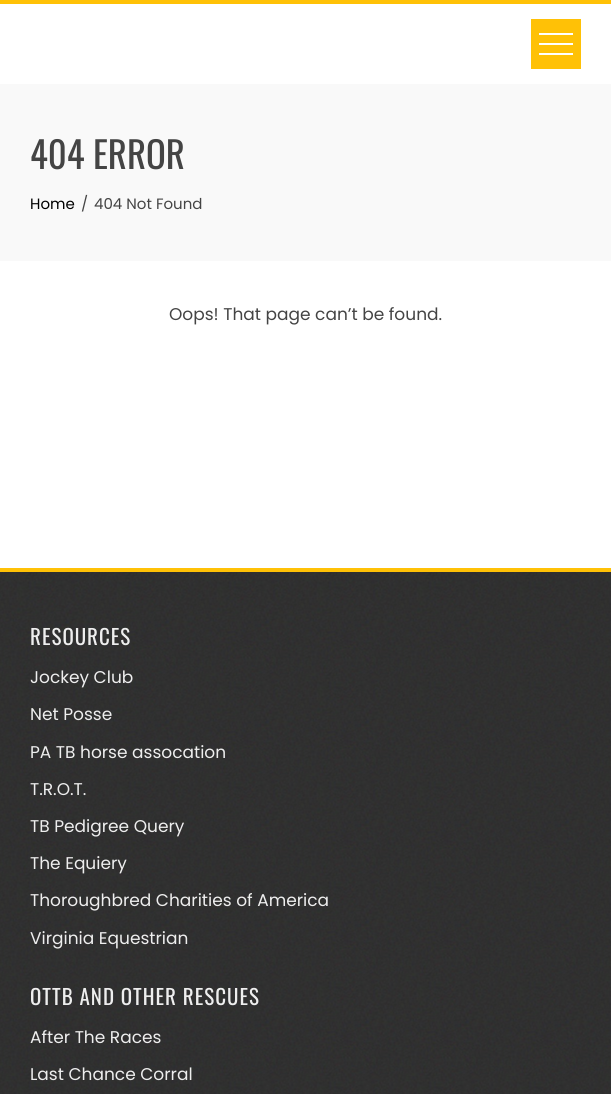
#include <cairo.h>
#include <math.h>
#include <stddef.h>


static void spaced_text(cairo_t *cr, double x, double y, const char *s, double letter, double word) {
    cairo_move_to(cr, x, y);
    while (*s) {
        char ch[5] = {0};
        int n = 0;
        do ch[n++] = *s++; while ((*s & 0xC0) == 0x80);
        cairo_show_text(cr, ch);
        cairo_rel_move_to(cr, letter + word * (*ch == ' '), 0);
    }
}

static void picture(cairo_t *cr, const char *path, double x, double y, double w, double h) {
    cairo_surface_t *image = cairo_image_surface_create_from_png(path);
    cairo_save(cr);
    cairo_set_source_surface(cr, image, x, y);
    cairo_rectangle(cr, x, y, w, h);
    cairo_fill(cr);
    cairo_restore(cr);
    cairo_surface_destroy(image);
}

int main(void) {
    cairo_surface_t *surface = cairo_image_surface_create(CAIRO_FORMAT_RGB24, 611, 1094);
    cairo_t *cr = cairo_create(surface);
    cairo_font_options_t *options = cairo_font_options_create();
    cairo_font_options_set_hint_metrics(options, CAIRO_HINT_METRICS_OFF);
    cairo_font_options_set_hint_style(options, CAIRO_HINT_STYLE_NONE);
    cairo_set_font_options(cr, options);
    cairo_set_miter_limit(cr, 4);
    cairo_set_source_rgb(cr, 1, 1, 1);
    cairo_paint(cr);
    cairo_set_source_rgb(cr, 1, 0.757, 0.027);
    cairo_rectangle(cr, 0, 0, 611, 4);
    cairo_fill(cr);
    cairo_rectangle(cr, 531, 19, 50, 50);
    cairo_fill(cr);
    cairo_set_source_rgb(cr, 1, 1, 1);
    cairo_rectangle(cr, 539, 33, 34, 2);
    cairo_fill(cr);
    cairo_rectangle(cr, 539, 53, 34, 2);
    cairo_fill(cr);
    cairo_rectangle(cr, 539, 43, 34, 2);
    cairo_fill(cr);
    cairo_set_source_rgb(cr, 0.976, 0.976, 0.976);
    cairo_rectangle(cr, 0, 84, 611, 177);
    cairo_fill(cr);
    cairo_select_font_face(cr, "Oswald", CAIRO_FONT_SLANT_NORMAL, CAIRO_FONT_WEIGHT_NORMAL);
    cairo_set_font_size(cr, 36.75);
    cairo_set_source_rgb(cr, 0.267, 0.267, 0.267);
    cairo_move_to(cr, 30, 169);
    cairo_show_text(cr, "404 ERROR");
    cairo_select_font_face(cr, "Poppins", CAIRO_FONT_SLANT_NORMAL, CAIRO_FONT_WEIGHT_NORMAL);
    cairo_set_font_size(cr, 15);
    cairo_set_source_rgb(cr, 0, 0, 0);
    cairo_move_to(cr, 30, 209);
    cairo_show_text(cr, "Home");
    cairo_set_source_rgb(cr, 0.267, 0.267, 0.267);
    cairo_move_to(cr, 81, 209);
    cairo_show_text(cr, "/");
    cairo_move_to(cr, 94, 209);
    cairo_show_text(cr, "404 Not Found");
    cairo_set_font_size(cr, 17);
    cairo_move_to(cr, 169, 320);
    cairo_show_text(cr, "Oops! That page can’t be found.");
    picture(cr, "img1.png", 0, 572, 611, 522);
    cairo_set_source_rgb(cr, 1, 0.757, 0.027);
    cairo_rectangle(cr, 0, 568, 611, 4);
    cairo_fill(cr);
    cairo_select_font_face(cr, "Oswald", CAIRO_FONT_SLANT_NORMAL, CAIRO_FONT_WEIGHT_NORMAL);
    cairo_set_font_size(cr, 21);
    cairo_set_source_rgb(cr, 0.933, 0.933, 0.933);
    spaced_text(cr, 30, 645, "RESOURCES", 1, 0);
    cairo_select_font_face(cr, "Poppins", CAIRO_FONT_SLANT_NORMAL, CAIRO_FONT_WEIGHT_NORMAL);
    cairo_set_font_size(cr, 17);
    cairo_move_to(cr, 30, 683);
    cairo_show_text(cr, "Jockey Club");
    cairo_move_to(cr, 30, 720);
    cairo_show_text(cr, "Net Posse");
    cairo_move_to(cr, 30, 758);
    cairo_show_text(cr, "PA TB horse assocation");
    cairo_move_to(cr, 30, 795);
    cairo_show_text(cr, "T.R.O.T.");
    cairo_move_to(cr, 30, 832);
    cairo_show_text(cr, "TB Pedigree Query");
    cairo_move_to(cr, 30, 869);
    cairo_show_text(cr, "The Equiery");
    cairo_move_to(cr, 30, 906);
    cairo_show_text(cr, "Thoroughbred Charities of America");
    cairo_move_to(cr, 30, 944);
    cairo_show_text(cr, "Virginia Equestrian");
    cairo_select_font_face(cr, "Oswald", CAIRO_FONT_SLANT_NORMAL, CAIRO_FONT_WEIGHT_NORMAL);
    cairo_set_font_size(cr, 21);
    spaced_text(cr, 30, 1005, "OTTB AND OTHER RESCUES", 1, 0);
    cairo_select_font_face(cr, "Poppins", CAIRO_FONT_SLANT_NORMAL, CAIRO_FONT_WEIGHT_NORMAL);
    cairo_set_font_size(cr, 17);
    cairo_move_to(cr, 30, 1043);
    cairo_show_text(cr, "After The Races");
    cairo_move_to(cr, 30, 1080);
    cairo_show_text(cr, "Last Chance Corral");
    cairo_surface_write_to_png(surface, "page.png");
    cairo_font_options_destroy(options);
    cairo_destroy(cr);
    cairo_surface_destroy(surface);
    return 0;
}
